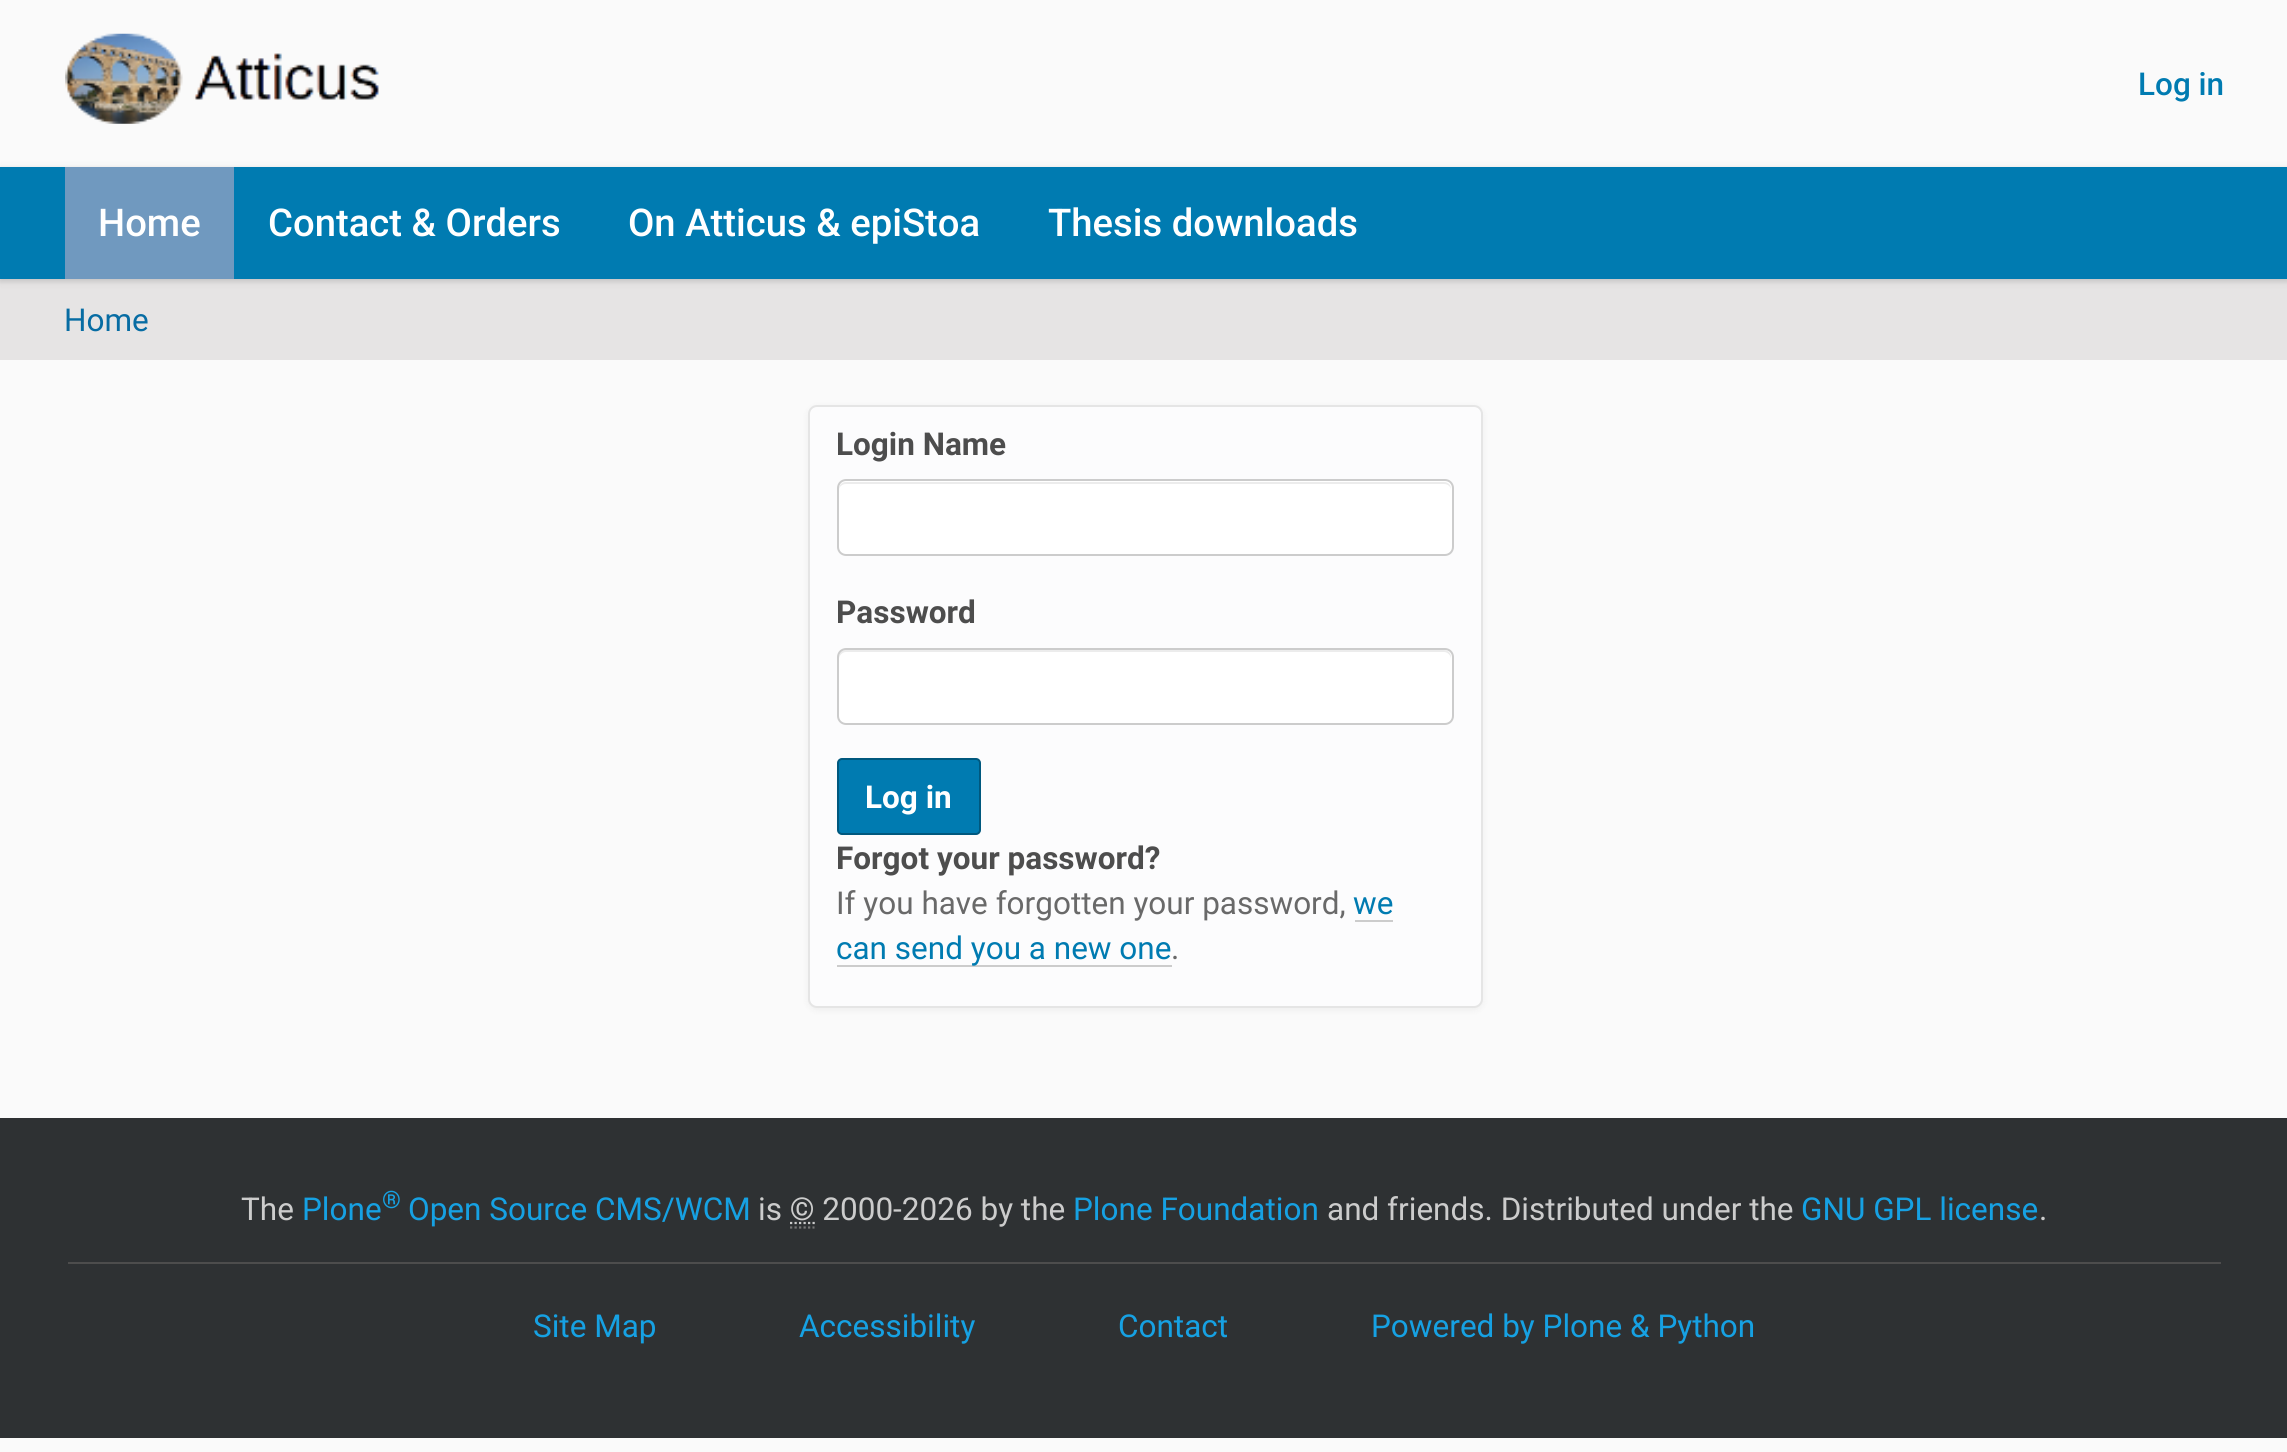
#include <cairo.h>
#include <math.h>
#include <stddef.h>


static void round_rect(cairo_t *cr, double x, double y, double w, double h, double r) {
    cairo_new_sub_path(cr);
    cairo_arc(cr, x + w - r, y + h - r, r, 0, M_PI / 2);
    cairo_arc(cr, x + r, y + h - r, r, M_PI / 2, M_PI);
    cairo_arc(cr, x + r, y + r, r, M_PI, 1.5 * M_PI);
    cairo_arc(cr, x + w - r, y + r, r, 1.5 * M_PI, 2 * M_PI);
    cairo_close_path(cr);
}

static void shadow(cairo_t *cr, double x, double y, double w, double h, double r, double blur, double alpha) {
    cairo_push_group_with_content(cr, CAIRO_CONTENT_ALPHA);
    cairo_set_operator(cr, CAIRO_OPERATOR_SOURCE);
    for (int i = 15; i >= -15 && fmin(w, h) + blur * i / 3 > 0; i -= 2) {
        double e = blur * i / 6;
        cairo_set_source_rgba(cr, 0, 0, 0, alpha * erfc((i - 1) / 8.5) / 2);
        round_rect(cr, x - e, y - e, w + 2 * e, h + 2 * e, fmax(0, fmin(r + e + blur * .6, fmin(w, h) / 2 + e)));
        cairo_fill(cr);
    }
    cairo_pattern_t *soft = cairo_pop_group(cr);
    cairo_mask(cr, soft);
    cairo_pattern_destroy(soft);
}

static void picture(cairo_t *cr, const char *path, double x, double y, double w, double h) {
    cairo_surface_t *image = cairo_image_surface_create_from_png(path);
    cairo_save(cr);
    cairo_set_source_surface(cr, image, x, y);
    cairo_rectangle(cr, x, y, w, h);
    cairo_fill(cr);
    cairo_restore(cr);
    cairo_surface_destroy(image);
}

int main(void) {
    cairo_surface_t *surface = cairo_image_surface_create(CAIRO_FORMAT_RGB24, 2287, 1452);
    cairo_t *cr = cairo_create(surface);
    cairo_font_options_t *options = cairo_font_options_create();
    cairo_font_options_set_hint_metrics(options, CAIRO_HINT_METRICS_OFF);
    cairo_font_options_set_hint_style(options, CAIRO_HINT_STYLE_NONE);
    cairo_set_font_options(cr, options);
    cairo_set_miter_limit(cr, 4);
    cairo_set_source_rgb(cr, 0.98, 0.98, 0.98);
    cairo_paint(cr);
    picture(cr, "img1.png", 65, 33, 314, 91);
    cairo_select_font_face(cr, "Roboto Medium", CAIRO_FONT_SLANT_NORMAL, CAIRO_FONT_WEIGHT_NORMAL);
    cairo_set_font_size(cr, 31.5);
    cairo_set_source_rgb(cr, 0, 0.482, 0.694);
    cairo_move_to(cr, 2138, 95);
    cairo_show_text(cr, "Log in");
    cairo_set_source_rgb(cr, 0.902, 0.894, 0.894);
    cairo_rectangle(cr, 0, 279, 2287, 81);
    cairo_fill(cr);
    cairo_set_source_rgb(cr, 0, 0, 0);
    shadow(cr, 0, 169, 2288, 112, 0, 3.5, 0.17);
    cairo_set_source_rgb(cr, 0, 0.482, 0.694);
    cairo_rectangle(cr, 0, 167, 2287, 112);
    cairo_fill(cr);
    cairo_set_source_rgb(cr, 0.439, 0.6, 0.749);
    cairo_rectangle(cr, 65, 167, 169, 112);
    cairo_fill(cr);
    cairo_set_font_size(cr, 38.25);
    cairo_set_source_rgb(cr, 1, 1, 1);
    cairo_move_to(cr, 98, 236);
    cairo_show_text(cr, "Home");
    cairo_move_to(cr, 268, 236);
    cairo_show_text(cr, "Contact & Orders");
    cairo_move_to(cr, 628, 236);
    cairo_show_text(cr, "On Atticus & epiStoa");
    cairo_move_to(cr, 1048, 236);
    cairo_show_text(cr, "Thesis downloads");
    cairo_select_font_face(cr, "Roboto", CAIRO_FONT_SLANT_NORMAL, CAIRO_FONT_WEIGHT_NORMAL);
    cairo_set_font_size(cr, 31.5);
    cairo_set_source_rgb(cr, 0.031, 0.424, 0.639);
    cairo_move_to(cr, 64, 331);
    cairo_show_text(cr, "Home");
    cairo_set_source_rgb(cr, 0, 0, 0);
    shadow(cr, 808, 407, 675, 603, 9, 3.5, 0.05);
    cairo_set_source_rgb(cr, 0.988, 0.988, 0.992);
    round_rect(cr, 809, 406, 673, 601, 8);
    cairo_fill_preserve(cr);
    cairo_set_source_rgb(cr, 0.898, 0.898, 0.898);
    cairo_stroke(cr);
    cairo_select_font_face(cr, "Roboto", CAIRO_FONT_SLANT_NORMAL, CAIRO_FONT_WEIGHT_BOLD);
    cairo_set_source_rgb(cr, 0.302, 0.302, 0.302);
    cairo_move_to(cr, 836, 455);
    cairo_show_text(cr, "Login Name");
    cairo_set_source_rgb(cr, 1, 1, 1);
    round_rect(cr, 837, 479, 617, 77, 9);
    cairo_fill(cr);
    cairo_set_source_rgb(cr, 0.925, 0.925, 0.925);
    cairo_new_path(cr);
    cairo_move_to(cr, 846, 484);
    cairo_line_to(cr, 1444, 484);
    cairo_curve_to(cr, 1448, 484, 1451, 487, 1451, 490);
    cairo_line_to(cr, 1451, 489);
    cairo_curve_to(cr, 1451, 485, 1448, 482, 1444, 482);
    cairo_line_to(cr, 846, 482);
    cairo_curve_to(cr, 842, 482, 839, 485, 839, 489);
    cairo_line_to(cr, 839, 490);
    cairo_curve_to(cr, 839, 487, 842, 484, 846, 484);
    cairo_close_path(cr);
    cairo_fill(cr);
    round_rect(cr, 838, 480, 615, 75, 8);
    cairo_set_source_rgb(cr, 0.8, 0.8, 0.8);
    cairo_stroke(cr);
    cairo_set_source_rgb(cr, 0.302, 0.302, 0.302);
    cairo_move_to(cr, 836, 623);
    cairo_show_text(cr, "Password");
    cairo_set_source_rgb(cr, 1, 1, 1);
    round_rect(cr, 837, 648, 617, 77, 9);
    cairo_fill(cr);
    cairo_set_source_rgb(cr, 0.925, 0.925, 0.925);
    cairo_new_path(cr);
    cairo_move_to(cr, 846, 652);
    cairo_line_to(cr, 1444, 652);
    cairo_curve_to(cr, 1448, 652, 1451, 656, 1451, 659);
    cairo_line_to(cr, 1451, 657);
    cairo_curve_to(cr, 1451, 653, 1448, 650, 1444, 650);
    cairo_line_to(cr, 846, 650);
    cairo_curve_to(cr, 842, 650, 839, 653, 839, 657);
    cairo_line_to(cr, 839, 659);
    cairo_curve_to(cr, 839, 656, 842, 652, 846, 652);
    cairo_close_path(cr);
    cairo_fill(cr);
    round_rect(cr, 838, 649, 615, 75, 8);
    cairo_set_source_rgb(cr, 0.8, 0.8, 0.8);
    cairo_stroke(cr);
    cairo_set_source_rgb(cr, 0, 0.482, 0.694);
    round_rect(cr, 838, 759, 142, 75, 4);
    cairo_fill_preserve(cr);
    cairo_set_source_rgb(cr, 0, 0.345, 0.494);
    cairo_stroke(cr);
    cairo_set_source_rgb(cr, 1, 1, 1);
    cairo_move_to(cr, 865, 808);
    cairo_show_text(cr, "Log in");
    cairo_set_source_rgb(cr, 0.302, 0.302, 0.302);
    cairo_move_to(cr, 836, 869);
    cairo_show_text(cr, "Forgot your password?");
    cairo_select_font_face(cr, "Roboto", CAIRO_FONT_SLANT_NORMAL, CAIRO_FONT_WEIGHT_NORMAL);
    cairo_set_source_rgb(cr, 0.412, 0.412, 0.412);
    cairo_move_to(cr, 836, 914);
    cairo_show_text(cr, "If you have forgotten your password,");
    cairo_set_source_rgb(cr, 0, 0.482, 0.694);
    cairo_move_to(cr, 1353, 914);
    cairo_show_text(cr, "we");
    cairo_set_source_rgb(cr, 0.8, 0.8, 0.8);
    cairo_rectangle(cr, 1355, 920, 38, 2);
    cairo_fill(cr);
    cairo_rectangle(cr, 837, 965, 335, 2);
    cairo_fill(cr);
    cairo_set_source_rgb(cr, 0, 0.482, 0.694);
    cairo_move_to(cr, 836, 959);
    cairo_show_text(cr, "can send you a new one");
    cairo_set_source_rgb(cr, 0.412, 0.412, 0.412);
    cairo_move_to(cr, 1171, 959);
    cairo_show_text(cr, ".");
    cairo_set_source_rgb(cr, 0.18, 0.192, 0.2);
    cairo_rectangle(cr, 0, 1118, 2287, 320);
    cairo_fill(cr);
    cairo_set_source_rgb(cr, 0.302, 0.302, 0.302);
    cairo_rectangle(cr, 68, 1262, 2153, 2);
    cairo_fill(cr);
    cairo_set_source_rgb(cr, 0.8, 0.8, 0.8);
    cairo_move_to(cr, 241, 1220);
    cairo_show_text(cr, "The");
    cairo_set_source_rgb(cr, 0.086, 0.631, 0.89);
    cairo_move_to(cr, 302, 1220);
    cairo_show_text(cr, "Plone");
    cairo_set_font_size(cr, 24);
    cairo_move_to(cr, 382, 1208);
    cairo_show_text(cr, "®");
    cairo_set_font_size(cr, 31.5);
    cairo_move_to(cr, 408, 1220);
    cairo_show_text(cr, "Open Source CMS/WCM");
    cairo_set_source_rgb(cr, 0.8, 0.8, 0.8);
    cairo_move_to(cr, 758, 1220);
    cairo_show_text(cr, "is © 2000-2026 by the");
    cairo_set_source_rgb(cr, 0.086, 0.631, 0.89);
    cairo_move_to(cr, 1073, 1220);
    cairo_show_text(cr, "Plone Foundation");
    cairo_set_source_rgb(cr, 0.8, 0.8, 0.8);
    cairo_move_to(cr, 1327, 1220);
    cairo_show_text(cr, "and friends. Distributed under the");
    cairo_set_source_rgb(cr, 0.086, 0.631, 0.89);
    cairo_move_to(cr, 1801, 1220);
    cairo_show_text(cr, "GNU GPL license");
    cairo_set_source_rgb(cr, 0.8, 0.8, 0.8);
    cairo_move_to(cr, 2039, 1220);
    cairo_show_text(cr, ".");
    cairo_new_path(cr);
    cairo_move_to(cr, 790, 1223);
    cairo_line_to(cr, 815, 1223);
    cairo_set_line_width(cr, 2.2);
    cairo_set_dash(cr, (double[]){2.25, 2.25}, 2, 0);
    cairo_stroke(cr);
    cairo_new_path(cr);
    cairo_move_to(cr, 790, 1227.5);
    cairo_line_to(cr, 814.5, 1227.5);
    cairo_set_source_rgb(cr, 0.467, 0.467, 0.467);
    cairo_stroke(cr);
    cairo_set_source_rgb(cr, 0.086, 0.631, 0.89);
    cairo_move_to(cr, 533, 1337);
    cairo_show_text(cr, "Site Map");
    cairo_move_to(cr, 799, 1337);
    cairo_show_text(cr, "Accessibility");
    cairo_move_to(cr, 1118, 1337);
    cairo_show_text(cr, "Contact");
    cairo_move_to(cr, 1371, 1337);
    cairo_show_text(cr, "Powered by Plone & Python");
    cairo_surface_write_to_png(surface, "page.png");
    cairo_font_options_destroy(options);
    cairo_destroy(cr);
    cairo_surface_destroy(surface);
    return 0;
}
